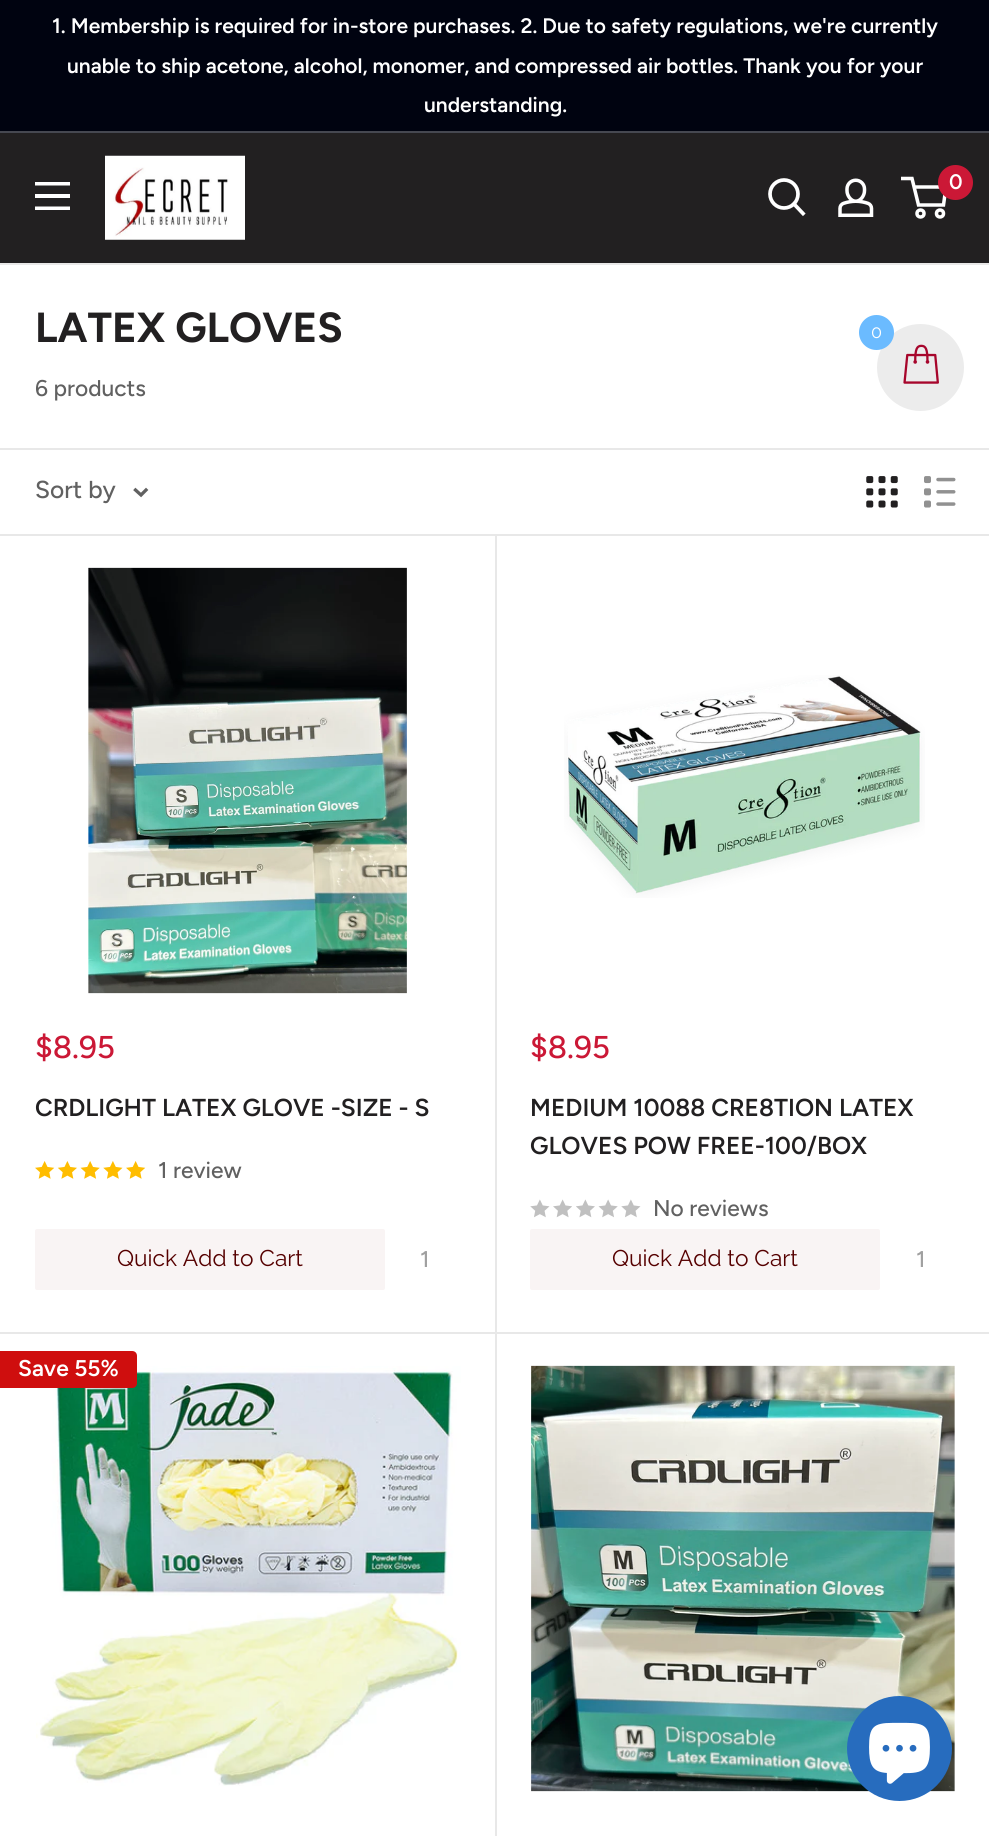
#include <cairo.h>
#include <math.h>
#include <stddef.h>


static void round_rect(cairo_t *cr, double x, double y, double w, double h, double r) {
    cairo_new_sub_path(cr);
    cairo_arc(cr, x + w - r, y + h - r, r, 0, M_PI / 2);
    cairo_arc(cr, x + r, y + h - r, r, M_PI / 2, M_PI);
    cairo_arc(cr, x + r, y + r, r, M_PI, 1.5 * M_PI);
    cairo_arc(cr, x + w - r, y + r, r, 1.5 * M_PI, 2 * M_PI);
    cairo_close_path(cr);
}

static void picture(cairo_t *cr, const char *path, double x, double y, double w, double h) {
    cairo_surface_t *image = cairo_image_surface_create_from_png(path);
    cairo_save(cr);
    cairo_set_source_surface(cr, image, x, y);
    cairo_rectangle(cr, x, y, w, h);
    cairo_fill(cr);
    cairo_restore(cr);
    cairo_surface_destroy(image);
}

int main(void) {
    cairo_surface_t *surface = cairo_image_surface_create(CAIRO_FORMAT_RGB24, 989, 1836);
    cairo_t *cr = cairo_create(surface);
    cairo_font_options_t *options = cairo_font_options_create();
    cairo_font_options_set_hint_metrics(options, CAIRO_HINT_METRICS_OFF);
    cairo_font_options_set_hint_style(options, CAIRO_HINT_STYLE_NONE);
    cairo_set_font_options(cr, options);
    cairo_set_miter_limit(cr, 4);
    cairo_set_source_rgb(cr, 1, 1, 1);
    cairo_paint(cr);
    cairo_set_source_rgb(cr, 0, 0.012, 0.063);
    cairo_rectangle(cr, 0, 0, 989, 131);
    cairo_fill(cr);
    cairo_set_source_rgb(cr, 0.275, 0.282, 0.318);
    cairo_rectangle(cr, 0, 131, 989, 2);
    cairo_fill(cr);
    cairo_select_font_face(cr, "Figtree SemiBold", CAIRO_FONT_SLANT_NORMAL, CAIRO_FONT_WEIGHT_NORMAL);
    cairo_set_font_size(cr, 21);
    cairo_set_source_rgb(cr, 1, 1, 1);
    cairo_move_to(cr, 52, 33);
    cairo_show_text(cr, "1. Membership is required for in-store purchases. 2. Due to safety regulations, we're currently");
    cairo_move_to(cr, 67, 73);
    cairo_show_text(cr, "unable to ship acetone, alcohol, monomer, and compressed air bottles. Thank you for your");
    cairo_move_to(cr, 424, 112);
    cairo_show_text(cr, "understanding.");
    cairo_set_source_rgb(cr, 0.133, 0.125, 0.129);
    cairo_rectangle(cr, 0, 133, 989, 130);
    cairo_fill(cr);
    cairo_set_source_rgb(cr, 1, 1, 1);
    cairo_set_fill_rule(cr, CAIRO_FILL_RULE_EVEN_ODD);
    cairo_new_path(cr);
    cairo_move_to(cr, 35, 206.5);
    cairo_line_to(cr, 70, 206.5);
    cairo_line_to(cr, 70, 210);
    cairo_line_to(cr, 35, 210);
    cairo_close_path(cr);
    cairo_move_to(cr, 35, 182);
    cairo_line_to(cr, 70, 182);
    cairo_line_to(cr, 70, 185.5);
    cairo_line_to(cr, 35, 185.5);
    cairo_close_path(cr);
    cairo_move_to(cr, 35, 194);
    cairo_line_to(cr, 70, 194);
    cairo_line_to(cr, 70, 198);
    cairo_line_to(cr, 35, 198);
    cairo_close_path(cr);
    cairo_fill(cr);
    picture(cr, "img1.png", 105, 155, 140, 85);
    cairo_new_path(cr);
    cairo_move_to(cr, 803, 213.5);
    cairo_line_to(cr, 794, 204);
    cairo_set_line_width(cr, 3.7);
    cairo_set_line_cap(cr, CAIRO_LINE_CAP_SQUARE);
    cairo_stroke(cr);
    cairo_arc(cr, 784, 194, 14, 0, 2 * M_PI);
    cairo_set_line_cap(cr, CAIRO_LINE_CAP_BUTT);
    cairo_stroke(cr);
    picture(cr, "img2.png", 838, 178, 36, 39);
    cairo_arc(cr, 920.5, 213.5, 3.5, 0, 2 * M_PI);
    cairo_set_line_width(cr, 3.5);
    cairo_stroke(cr);
    cairo_arc(cr, 940, 213.5, 3.5, 0, 2 * M_PI);
    cairo_stroke(cr);
    cairo_new_path(cr);
    cairo_move_to(cr, 914, 187);
    cairo_line_to(cr, 946, 187);
    cairo_line_to(cr, 943.5, 205);
    cairo_line_to(cr, 918.5, 205);
    cairo_line_to(cr, 912, 178.5);
    cairo_line_to(cr, 901, 178.5);
    cairo_stroke(cr);
    cairo_set_source_rgb(cr, 0.796, 0.094, 0.212);
    cairo_arc(cr, 955.5, 182.5, 17.5, 0, 2 * M_PI);
    cairo_fill(cr);
    cairo_set_source_rgb(cr, 1, 1, 1);
    cairo_move_to(cr, 949, 189);
    cairo_show_text(cr, "0");
    cairo_set_source_rgb(cr, 0.91, 0.91, 0.91);
    cairo_rectangle(cr, 0, 263, 989, 2);
    cairo_fill(cr);
    cairo_select_font_face(cr, "Figtree", CAIRO_FONT_SLANT_NORMAL, CAIRO_FONT_WEIGHT_BOLD);
    cairo_set_font_size(cr, 42);
    cairo_set_source_rgb(cr, 0.133, 0.125, 0.129);
    cairo_move_to(cr, 35, 342);
    cairo_show_text(cr, "LATEX GLOVES");
    cairo_select_font_face(cr, "Figtree Medium", CAIRO_FONT_SLANT_NORMAL, CAIRO_FONT_WEIGHT_NORMAL);
    cairo_set_font_size(cr, 22.75);
    cairo_set_source_rgb(cr, 0.38, 0.38, 0.38);
    cairo_move_to(cr, 35, 396);
    cairo_show_text(cr, "6 products");
    cairo_set_source_rgb(cr, 0.91, 0.91, 0.91);
    cairo_set_fill_rule(cr, CAIRO_FILL_RULE_WINDING);
    cairo_new_path(cr);
    cairo_move_to(cr, 0, 448);
    cairo_line_to(cr, 0, 450);
    cairo_line_to(cr, 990, 450);
    cairo_line_to(cr, 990, 532);
    cairo_line_to(cr, 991, 532);
    cairo_line_to(cr, 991, 448);
    cairo_close_path(cr);
    cairo_fill(cr);
    cairo_new_path(cr);
    cairo_move_to(cr, 2, 1332);
    cairo_line_to(cr, 497, 1332);
    cairo_line_to(cr, 497, 534);
    cairo_line_to(cr, 495, 534);
    cairo_line_to(cr, 495, 1332);
    cairo_close_path(cr);
    cairo_fill(cr);
    cairo_new_path(cr);
    cairo_move_to(cr, 0, 534);
    cairo_line_to(cr, 0, 536);
    cairo_line_to(cr, 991, 536);
    cairo_line_to(cr, 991, 452);
    cairo_line_to(cr, 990, 452);
    cairo_line_to(cr, 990, 534);
    cairo_close_path(cr);
    cairo_fill(cr);
    cairo_set_font_size(cr, 24.5);
    cairo_set_source_rgb(cr, 0.38, 0.38, 0.38);
    cairo_move_to(cr, 35, 498);
    cairo_show_text(cr, "Sort by");
    cairo_new_path(cr);
    cairo_move_to(cr, 146, 490);
    cairo_line_to(cr, 141, 495);
    cairo_line_to(cr, 135.5, 490);
    cairo_set_line_width(cr, 3.3);
    cairo_set_line_cap(cr, CAIRO_LINE_CAP_SQUARE);
    cairo_stroke(cr);
    picture(cr, "img3.png", 866, 476, 32, 32);
    picture(cr, "img4.png", 924, 476, 32, 32);
    cairo_set_source_rgb(cr, 0.91, 0.91, 0.91);
    cairo_rectangle(cr, 0, 1332, 495, 2);
    cairo_fill(cr);
    picture(cr, "img5.png", 88, 567, 319, 427);
    cairo_set_font_size(cr, 31.5);
    cairo_set_source_rgb(cr, 0.796, 0.094, 0.212);
    cairo_move_to(cr, 35, 1058);
    cairo_show_text(cr, "$8.95");
    cairo_select_font_face(cr, "Figtree SemiBold", CAIRO_FONT_SLANT_NORMAL, CAIRO_FONT_WEIGHT_NORMAL);
    cairo_set_font_size(cr, 24.5);
    cairo_set_source_rgb(cr, 0.133, 0.125, 0.129);
    cairo_move_to(cr, 35, 1116);
    cairo_show_text(cr, "CRDLIGHT LATEX GLOVE -SIZE - S");
    picture(cr, "img6.png", 35, 1161, 20, 18);
    picture(cr, "img7.png", 57, 1161, 20, 18);
    picture(cr, "img8.png", 80, 1161, 20, 18);
    picture(cr, "img9.png", 103, 1161, 20, 18);
    picture(cr, "img6.png", 126, 1161, 20, 18);
    cairo_select_font_face(cr, "Figtree Medium", CAIRO_FONT_SLANT_NORMAL, CAIRO_FONT_WEIGHT_NORMAL);
    cairo_set_font_size(cr, 22.75);
    cairo_set_source_rgb(cr, 0.38, 0.38, 0.38);
    cairo_move_to(cr, 158, 1178);
    cairo_show_text(cr, "1 review");
    cairo_set_source_rgb(cr, 0.976, 0.957, 0.957);
    round_rect(cr, 35, 1229, 350, 61, 2);
    cairo_fill(cr);
    cairo_select_font_face(cr, "Raleway Thin", CAIRO_FONT_SLANT_NORMAL, CAIRO_FONT_WEIGHT_NORMAL);
    cairo_set_source_rgb(cr, 0.337, 0, 0);
    cairo_move_to(cr, 117, 1266);
    cairo_show_text(cr, "Quick Add to Cart");
    cairo_select_font_face(cr, "Figtree Medium", CAIRO_FONT_SLANT_NORMAL, CAIRO_FONT_WEIGHT_NORMAL);
    cairo_set_source_rgb(cr, 0.627, 0.627, 0.627);
    cairo_move_to(cr, 420, 1267);
    cairo_show_text(cr, "1");
    picture(cr, "img10.png", 564, 675, 361, 223);
    cairo_set_font_size(cr, 31.5);
    cairo_set_source_rgb(cr, 0.796, 0.094, 0.212);
    cairo_move_to(cr, 530, 1058);
    cairo_show_text(cr, "$8.95");
    cairo_select_font_face(cr, "Figtree SemiBold", CAIRO_FONT_SLANT_NORMAL, CAIRO_FONT_WEIGHT_NORMAL);
    cairo_set_font_size(cr, 24.5);
    cairo_set_source_rgb(cr, 0.133, 0.125, 0.129);
    cairo_move_to(cr, 530, 1116);
    cairo_show_text(cr, "MEDIUM 10088 CRE8TION LATEX");
    cairo_move_to(cr, 530, 1154);
    cairo_show_text(cr, "GLOVES POW FREE-100/BOX");
    picture(cr, "img11.png", 530, 1199, 20, 19);
    picture(cr, "img12.png", 553, 1199, 19, 19);
    picture(cr, "img13.png", 576, 1199, 19, 19);
    picture(cr, "img14.png", 598, 1199, 20, 19);
    picture(cr, "img11.png", 621, 1199, 20, 19);
    cairo_select_font_face(cr, "Figtree Medium", CAIRO_FONT_SLANT_NORMAL, CAIRO_FONT_WEIGHT_NORMAL);
    cairo_set_font_size(cr, 22.75);
    cairo_set_source_rgb(cr, 0.38, 0.38, 0.38);
    cairo_move_to(cr, 653, 1216);
    cairo_show_text(cr, "No reviews");
    cairo_set_source_rgb(cr, 0.976, 0.957, 0.957);
    round_rect(cr, 530, 1229, 350, 61, 2);
    cairo_fill(cr);
    cairo_select_font_face(cr, "Raleway Thin", CAIRO_FONT_SLANT_NORMAL, CAIRO_FONT_WEIGHT_NORMAL);
    cairo_set_source_rgb(cr, 0.337, 0, 0);
    cairo_move_to(cr, 612, 1266);
    cairo_show_text(cr, "Quick Add to Cart");
    cairo_select_font_face(cr, "Figtree Medium", CAIRO_FONT_SLANT_NORMAL, CAIRO_FONT_WEIGHT_NORMAL);
    cairo_set_source_rgb(cr, 0.627, 0.627, 0.627);
    cairo_move_to(cr, 916, 1267);
    cairo_show_text(cr, "1");
    cairo_set_source_rgb(cr, 0.91, 0.91, 0.91);
    cairo_new_path(cr);
    cairo_move_to(cr, 495, 536);
    cairo_line_to(cr, 495, 1334);
    cairo_line_to(cr, 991, 1334);
    cairo_line_to(cr, 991, 536);
    cairo_line_to(cr, 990, 536);
    cairo_line_to(cr, 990, 1332);
    cairo_line_to(cr, 495, 1332);
    cairo_close_path(cr);
    cairo_fill(cr);
    picture(cr, "img15.png", 36, 1366, 425, 420);
    cairo_set_source_rgb(cr, 0.812, 0.055, 0.055);
    cairo_new_path(cr);
    cairo_move_to(cr, 0, 1351);
    cairo_line_to(cr, 132, 1351);
    cairo_curve_to(cr, 135, 1351, 137, 1353, 137, 1356);
    cairo_line_to(cr, 137, 1383);
    cairo_curve_to(cr, 137, 1386, 135, 1388, 132, 1388);
    cairo_line_to(cr, 0, 1388);
    cairo_close_path(cr);
    cairo_fill(cr);
    cairo_select_font_face(cr, "Figtree SemiBold", CAIRO_FONT_SLANT_NORMAL, CAIRO_FONT_WEIGHT_NORMAL);
    cairo_set_source_rgb(cr, 1, 1, 1);
    cairo_move_to(cr, 18, 1376);
    cairo_show_text(cr, "Save 55%");
    cairo_set_source_rgb(cr, 0.91, 0.91, 0.91);
    cairo_new_path(cr);
    cairo_move_to(cr, 2, 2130);
    cairo_line_to(cr, 497, 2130);
    cairo_line_to(cr, 497, 1332);
    cairo_line_to(cr, 495, 1332);
    cairo_line_to(cr, 495, 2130);
    cairo_close_path(cr);
    cairo_fill(cr);
    picture(cr, "img16.png", 531, 1365, 424, 427);
    cairo_set_source_rgb(cr, 0.922, 0.922, 0.922);
    cairo_arc(cr, 920.5, 367.5, 43.5, 0, 2 * M_PI);
    cairo_fill(cr);
    cairo_set_source_rgb(cr, 0.42, 0.733, 1);
    cairo_arc(cr, 876.5, 332.5, 17.5, 0, 2 * M_PI);
    cairo_fill(cr);
    cairo_select_font_face(cr, "Raleway Thin", CAIRO_FONT_SLANT_NORMAL, CAIRO_FONT_WEIGHT_NORMAL);
    cairo_set_font_size(cr, 18);
    cairo_set_source_rgb(cr, 1, 1, 1);
    cairo_move_to(cr, 871, 338);
    cairo_show_text(cr, "0");
    picture(cr, "img17.png", 903, 344, 36, 40);
    cairo_set_source_rgb(cr, 0.153, 0.424, 0.745);
    cairo_arc(cr, 899.5, 1748.5, 52.5, 0, 2 * M_PI);
    cairo_fill(cr);
    picture(cr, "img18.png", 869, 1722, 61, 62);
    cairo_surface_write_to_png(surface, "page.png");
    cairo_font_options_destroy(options);
    cairo_destroy(cr);
    cairo_surface_destroy(surface);
    return 0;
}
